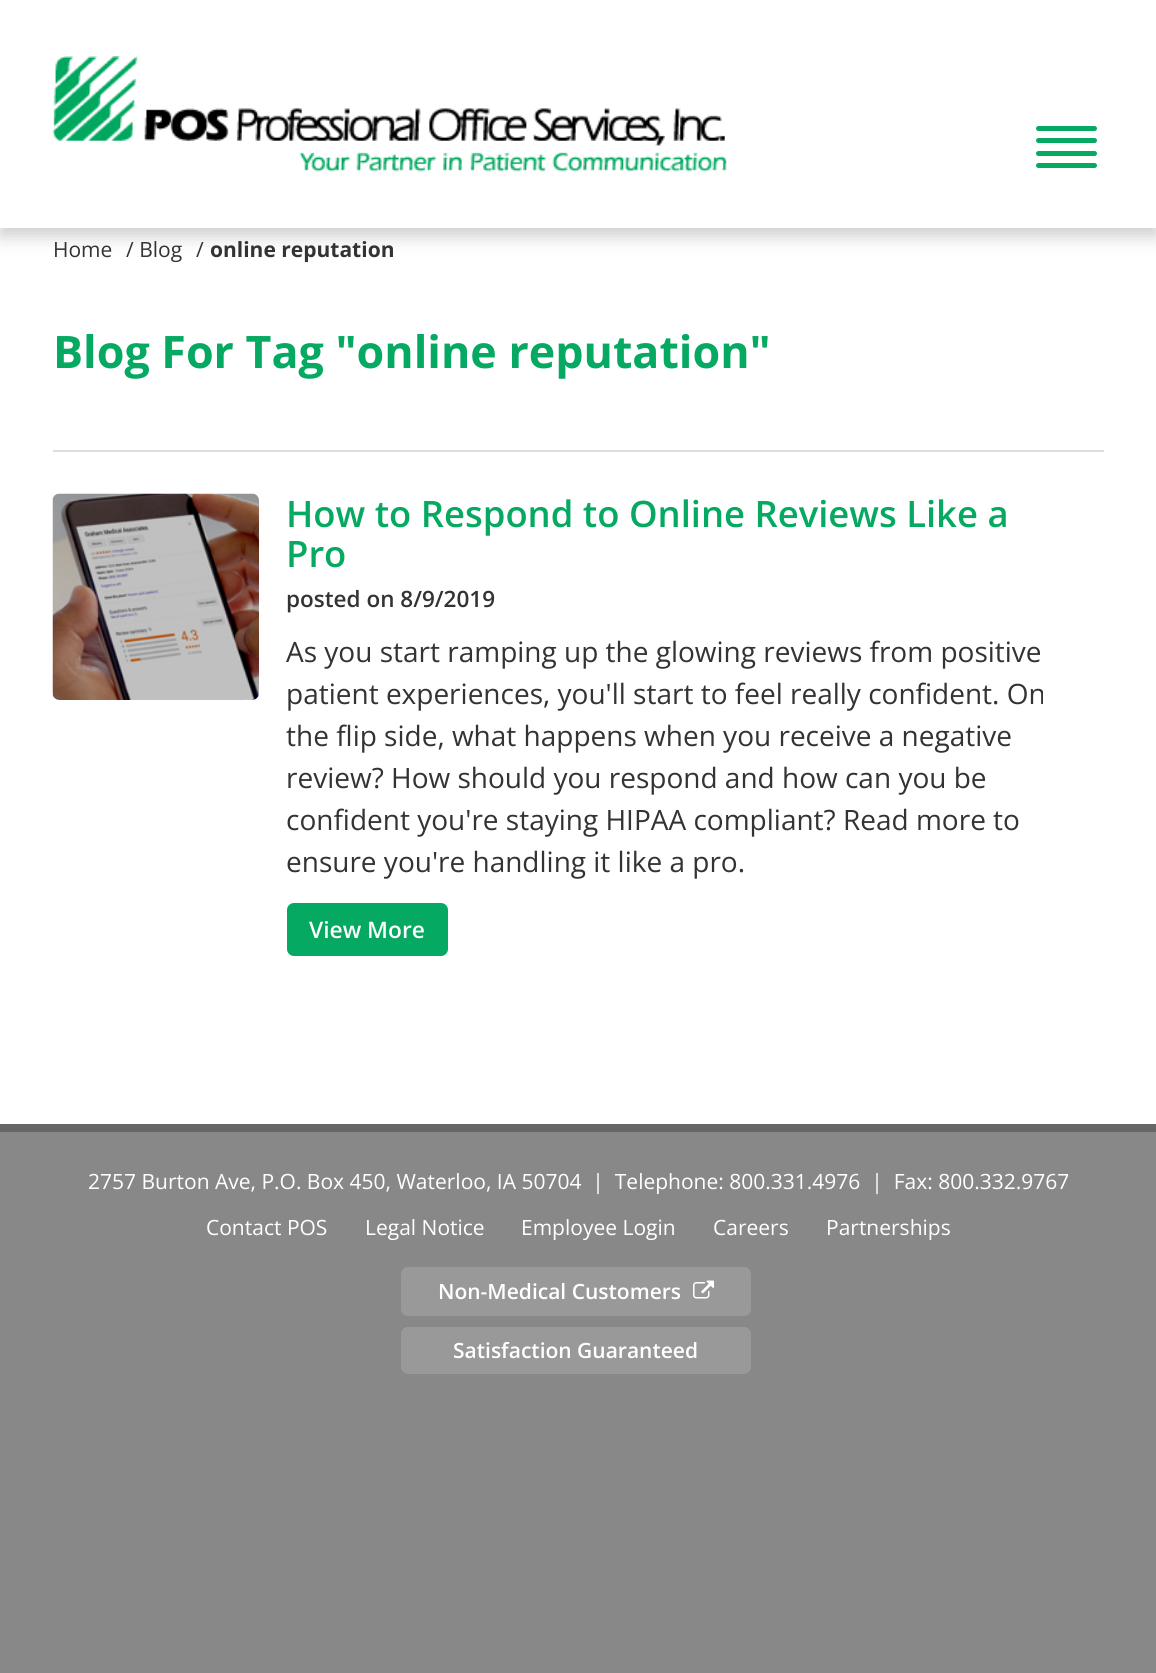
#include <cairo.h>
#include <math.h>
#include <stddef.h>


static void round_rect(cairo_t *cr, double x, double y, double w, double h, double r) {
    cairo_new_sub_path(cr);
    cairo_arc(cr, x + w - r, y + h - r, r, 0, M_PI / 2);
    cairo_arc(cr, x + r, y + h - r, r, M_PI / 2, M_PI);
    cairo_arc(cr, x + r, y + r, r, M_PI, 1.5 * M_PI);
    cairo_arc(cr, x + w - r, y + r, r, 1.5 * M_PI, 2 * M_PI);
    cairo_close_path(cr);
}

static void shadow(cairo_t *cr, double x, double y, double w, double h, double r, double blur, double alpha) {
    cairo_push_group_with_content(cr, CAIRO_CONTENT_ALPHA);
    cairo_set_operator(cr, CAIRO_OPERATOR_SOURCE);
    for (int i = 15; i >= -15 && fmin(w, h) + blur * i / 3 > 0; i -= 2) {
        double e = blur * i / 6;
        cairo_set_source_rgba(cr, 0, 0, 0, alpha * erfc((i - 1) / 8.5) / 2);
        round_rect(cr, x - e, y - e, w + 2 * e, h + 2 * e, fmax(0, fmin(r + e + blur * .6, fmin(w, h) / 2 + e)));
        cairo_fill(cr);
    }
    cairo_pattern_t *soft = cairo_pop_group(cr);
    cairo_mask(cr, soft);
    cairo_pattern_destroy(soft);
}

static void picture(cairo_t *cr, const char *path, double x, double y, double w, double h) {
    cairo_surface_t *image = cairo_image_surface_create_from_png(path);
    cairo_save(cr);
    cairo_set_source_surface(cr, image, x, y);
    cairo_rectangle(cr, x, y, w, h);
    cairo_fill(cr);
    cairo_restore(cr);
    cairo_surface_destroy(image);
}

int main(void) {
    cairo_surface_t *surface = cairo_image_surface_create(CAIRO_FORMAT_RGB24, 1156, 1673);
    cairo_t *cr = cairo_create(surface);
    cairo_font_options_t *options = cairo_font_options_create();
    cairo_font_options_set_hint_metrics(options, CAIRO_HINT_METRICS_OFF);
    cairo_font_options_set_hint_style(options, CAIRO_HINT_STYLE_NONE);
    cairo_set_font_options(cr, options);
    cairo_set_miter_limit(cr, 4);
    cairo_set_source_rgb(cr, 0.533, 0.533, 0.533);
    cairo_paint(cr);
    cairo_set_source_rgb(cr, 1, 1, 1);
    cairo_rectangle(cr, 0, 228, 1156, 896);
    cairo_fill(cr);
    cairo_set_source_rgb(cr, 0, 0, 0);
    shadow(cr, 0, 9, 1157, 227, 0, 9, 0.2);
    cairo_set_source_rgb(cr, 1, 1, 1);
    cairo_rectangle(cr, 0, 0, 1156, 228);
    cairo_fill(cr);
    picture(cr, "img1.png", 52, 56, 675, 116);
    cairo_set_source_rgb(cr, 0.02, 0.663, 0.384);
    round_rect(cr, 1036, 126, 61, 5, 2.5);
    cairo_fill(cr);
    round_rect(cr, 1036, 138, 61, 5, 2.5);
    cairo_fill(cr);
    round_rect(cr, 1036, 151, 61, 5, 2.5);
    cairo_fill(cr);
    round_rect(cr, 1036, 163, 61, 5, 2.5);
    cairo_fill(cr);
    cairo_select_font_face(cr, "Open Sans", CAIRO_FONT_SLANT_NORMAL, CAIRO_FONT_WEIGHT_NORMAL);
    cairo_set_font_size(cr, 21);
    cairo_set_source_rgb(cr, 0.2, 0.2, 0.2);
    cairo_move_to(cr, 53, 257);
    cairo_show_text(cr, "Home");
    cairo_move_to(cr, 126, 257);
    cairo_show_text(cr, "/ Blog");
    cairo_move_to(cr, 196, 257);
    cairo_show_text(cr, "/");
    cairo_select_font_face(cr, "Open Sans", CAIRO_FONT_SLANT_NORMAL, CAIRO_FONT_WEIGHT_BOLD);
    cairo_move_to(cr, 210, 257);
    cairo_show_text(cr, "online reputation");
    cairo_set_font_size(cr, 44.75);
    cairo_set_source_rgb(cr, 0.02, 0.663, 0.384);
    cairo_move_to(cr, 53, 368);
    cairo_show_text(cr, "Blog For Tag \"online reputation\"");
    cairo_set_source_rgb(cr, 0.867, 0.867, 0.867);
    cairo_rectangle(cr, 53, 450, 1051, 2);
    cairo_fill(cr);
    picture(cr, "img2.png", 52, 493, 207, 207);
    cairo_select_font_face(cr, "Open Sans SemiBold", CAIRO_FONT_SLANT_NORMAL, CAIRO_FONT_WEIGHT_NORMAL);
    cairo_set_font_size(cr, 36.4);
    cairo_set_source_rgb(cr, 0.02, 0.663, 0.384);
    cairo_move_to(cr, 286, 527);
    cairo_show_text(cr, "How to Respond to Online Reviews Like a");
    cairo_move_to(cr, 286, 567);
    cairo_show_text(cr, "Pro");
    cairo_set_font_size(cr, 22.5);
    cairo_set_source_rgb(cr, 0.2, 0.2, 0.2);
    cairo_move_to(cr, 286, 607);
    cairo_show_text(cr, "posted on 8/9/2019");
    cairo_select_font_face(cr, "Open Sans", CAIRO_FONT_SLANT_NORMAL, CAIRO_FONT_WEIGHT_NORMAL);
    cairo_set_font_size(cr, 28);
    cairo_move_to(cr, 286, 662);
    cairo_show_text(cr, "As you start ramping up the glowing reviews from positive");
    cairo_move_to(cr, 286, 704);
    cairo_show_text(cr, "patient experiences, you'll start to feel really confident. On");
    cairo_move_to(cr, 286, 746);
    cairo_show_text(cr, "the flip side, what happens when you receive a negative");
    cairo_move_to(cr, 286, 788);
    cairo_show_text(cr, "review? How should you respond and how can you be");
    cairo_move_to(cr, 286, 830);
    cairo_show_text(cr, "confident you're staying HIPAA compliant? Read more to");
    cairo_move_to(cr, 286, 872);
    cairo_show_text(cr, "ensure you're handling it like a pro.");
    cairo_set_source_rgb(cr, 0.02, 0.663, 0.384);
    round_rect(cr, 287, 903, 161, 53, 7);
    cairo_fill(cr);
    cairo_select_font_face(cr, "Open Sans SemiBold", CAIRO_FONT_SLANT_NORMAL, CAIRO_FONT_WEIGHT_NORMAL);
    cairo_set_font_size(cr, 22.75);
    cairo_set_source_rgb(cr, 1, 1, 1);
    cairo_move_to(cr, 309, 938);
    cairo_show_text(cr, "View More");
    cairo_set_source_rgb(cr, 0.4, 0.4, 0.4);
    cairo_rectangle(cr, 0, 1124, 1156, 8);
    cairo_fill(cr);
    cairo_select_font_face(cr, "Open Sans", CAIRO_FONT_SLANT_NORMAL, CAIRO_FONT_WEIGHT_NORMAL);
    cairo_set_font_size(cr, 21);
    cairo_set_source_rgb(cr, 1, 1, 1);
    cairo_move_to(cr, 88, 1189);
    cairo_show_text(cr, "2757 Burton Ave, P.O. Box 450, Waterloo, IA 50704  |  Telephone: 800.331.4976  |  Fax: 800.332.9767");
    cairo_move_to(cr, 206, 1235);
    cairo_show_text(cr, "Contact POS");
    cairo_move_to(cr, 365, 1235);
    cairo_show_text(cr, "Legal Notice");
    cairo_move_to(cr, 521, 1235);
    cairo_show_text(cr, "Employee Login");
    cairo_move_to(cr, 713, 1235);
    cairo_show_text(cr, "Careers");
    cairo_move_to(cr, 826, 1235);
    cairo_show_text(cr, "Partnerships");
    cairo_set_source_rgb(cr, 0.6, 0.6, 0.6);
    round_rect(cr, 401, 1267, 350, 49, 7);
    cairo_fill(cr);
    cairo_select_font_face(cr, "Open Sans SemiBold", CAIRO_FONT_SLANT_NORMAL, CAIRO_FONT_WEIGHT_NORMAL);
    cairo_set_source_rgb(cr, 1, 1, 1);
    cairo_move_to(cr, 438, 1299);
    cairo_show_text(cr, "Non-Medical Customers");
    picture(cr, "img3.png", 693, 1280, 21, 19);
    cairo_set_source_rgb(cr, 0.6, 0.6, 0.6);
    round_rect(cr, 401, 1327, 350, 47, 7);
    cairo_fill(cr);
    cairo_set_source_rgb(cr, 1, 1, 1);
    cairo_move_to(cr, 453, 1358);
    cairo_show_text(cr, "Satisfaction Guaranteed");
    cairo_surface_write_to_png(surface, "page.png");
    cairo_font_options_destroy(options);
    cairo_destroy(cr);
    cairo_surface_destroy(surface);
    return 0;
}
